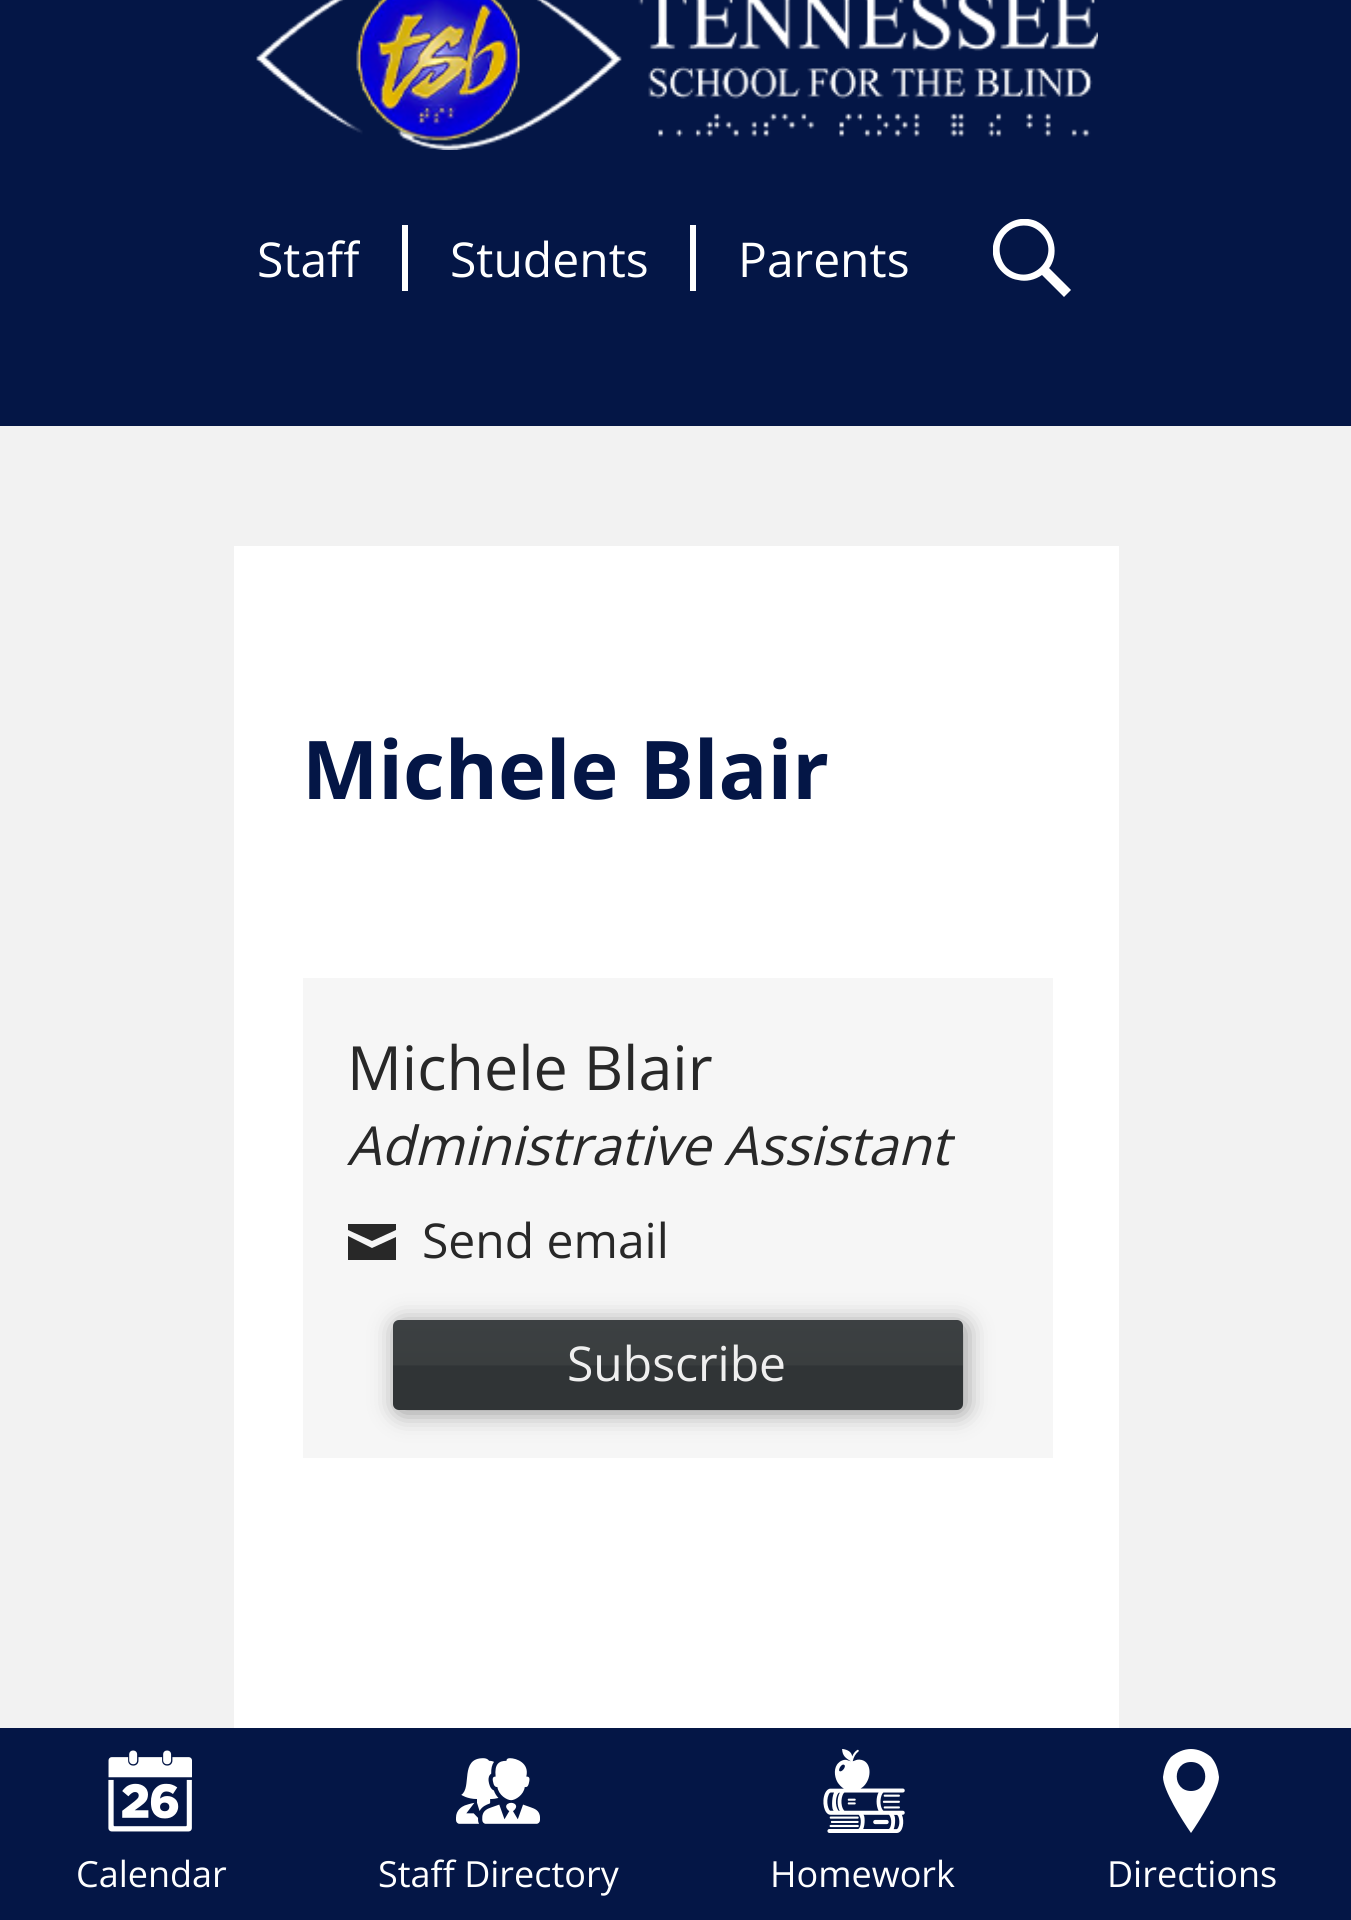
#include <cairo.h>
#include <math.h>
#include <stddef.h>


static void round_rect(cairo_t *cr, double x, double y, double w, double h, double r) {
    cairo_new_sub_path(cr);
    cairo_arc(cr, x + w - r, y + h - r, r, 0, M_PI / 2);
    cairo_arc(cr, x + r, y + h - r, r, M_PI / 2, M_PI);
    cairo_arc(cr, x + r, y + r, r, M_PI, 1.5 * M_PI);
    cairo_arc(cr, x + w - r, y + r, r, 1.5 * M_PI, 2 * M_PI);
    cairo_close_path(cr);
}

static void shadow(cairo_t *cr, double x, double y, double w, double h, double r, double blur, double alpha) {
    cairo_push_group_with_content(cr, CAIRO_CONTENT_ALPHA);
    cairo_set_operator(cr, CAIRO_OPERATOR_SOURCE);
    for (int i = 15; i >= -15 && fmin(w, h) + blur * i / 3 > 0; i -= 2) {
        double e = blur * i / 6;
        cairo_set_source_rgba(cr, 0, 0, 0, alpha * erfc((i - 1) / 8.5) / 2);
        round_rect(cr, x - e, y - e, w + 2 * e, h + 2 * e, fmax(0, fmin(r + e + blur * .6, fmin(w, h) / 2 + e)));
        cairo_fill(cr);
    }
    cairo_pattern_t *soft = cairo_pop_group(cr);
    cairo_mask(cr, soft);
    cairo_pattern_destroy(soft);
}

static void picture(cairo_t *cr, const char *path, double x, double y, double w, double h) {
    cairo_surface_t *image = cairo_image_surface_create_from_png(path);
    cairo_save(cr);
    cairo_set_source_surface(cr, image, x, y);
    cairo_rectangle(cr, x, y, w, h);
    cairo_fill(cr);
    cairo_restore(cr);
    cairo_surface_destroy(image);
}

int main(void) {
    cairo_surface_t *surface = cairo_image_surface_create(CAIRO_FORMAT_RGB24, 1351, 1920);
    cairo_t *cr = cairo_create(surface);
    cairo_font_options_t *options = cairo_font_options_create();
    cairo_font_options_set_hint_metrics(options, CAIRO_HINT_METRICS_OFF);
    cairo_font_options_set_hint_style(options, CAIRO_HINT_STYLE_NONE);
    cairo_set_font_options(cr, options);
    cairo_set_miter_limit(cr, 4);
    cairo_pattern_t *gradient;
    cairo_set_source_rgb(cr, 0.949, 0.949, 0.949);
    cairo_paint(cr);
    cairo_set_source_rgb(cr, 0.016, 0.086, 0.275);
    cairo_rectangle(cr, 0, 0, 1351, 426);
    cairo_fill(cr);
    picture(cr, "img1.png", 256, 0, 842, 150);
    cairo_save(cr);
    cairo_rectangle(cr, 258, 225, 102, 66);
    cairo_clip(cr);
    cairo_select_font_face(cr, "Open Sans", CAIRO_FONT_SLANT_NORMAL, CAIRO_FONT_WEIGHT_NORMAL);
    cairo_set_font_size(cr, 48);
    cairo_set_source_rgb(cr, 1, 1, 1);
    cairo_move_to(cr, 257, 277);
    cairo_show_text(cr, "Staff");
    cairo_restore(cr);
    cairo_set_source_rgb(cr, 1, 1, 1);
    cairo_rectangle(cr, 402, 225, 6, 66);
    cairo_fill(cr);
    cairo_select_font_face(cr, "Open Sans", CAIRO_FONT_SLANT_NORMAL, CAIRO_FONT_WEIGHT_NORMAL);
    cairo_set_font_size(cr, 48);
    cairo_move_to(cr, 450, 277);
    cairo_show_text(cr, "Students");
    cairo_rectangle(cr, 690, 225, 6, 66);
    cairo_fill(cr);
    cairo_move_to(cr, 738, 277);
    cairo_show_text(cr, "Parents");
    cairo_save(cr);
    cairo_rectangle(cr, 993, 219, 78, 78);
    cairo_clip(cr);
    cairo_new_path(cr);
    cairo_move_to(cr, 1050, 267);
    cairo_curve_to(cr, 1060, 251, 1053, 229, 1036, 221);
    cairo_curve_to(cr, 1008, 210, 981, 242, 998, 267);
    cairo_curve_to(cr, 1003, 274, 1010, 279, 1018, 280);
    cairo_curve_to(cr, 1026, 282, 1035, 280, 1042, 275);
    cairo_line_to(cr, 1064, 297);
    cairo_line_to(cr, 1071, 290);
    cairo_line_to(cr, 1049, 268);
    cairo_close_path(cr);
    cairo_move_to(cr, 1041, 233);
    cairo_curve_to(cr, 1063, 255, 1031, 289, 1007, 268);
    cairo_curve_to(cr, 1003, 264, 1001, 259, 1000, 254);
    cairo_curve_to(cr, 996, 230, 1025, 216, 1041, 233);
    cairo_close_path(cr);
    cairo_fill(cr);
    cairo_restore(cr);
    cairo_rectangle(cr, 234, 546, 885, 1182);
    cairo_fill(cr);
    cairo_select_font_face(cr, "Open Sans", CAIRO_FONT_SLANT_NORMAL, CAIRO_FONT_WEIGHT_BOLD);
    cairo_set_font_size(cr, 81);
    cairo_set_source_rgb(cr, 0.016, 0.086, 0.275);
    cairo_move_to(cr, 302, 799);
    cairo_show_text(cr, "Michele Blair");
    cairo_set_source_rgb(cr, 0.961, 0.961, 0.961);
    cairo_rectangle(cr, 303, 978, 750, 480);
    cairo_fill(cr);
    cairo_select_font_face(cr, "Open Sans", CAIRO_FONT_SLANT_NORMAL, CAIRO_FONT_WEIGHT_NORMAL);
    cairo_set_font_size(cr, 61);
    cairo_set_source_rgb(cr, 0.157, 0.157, 0.157);
    cairo_move_to(cr, 347, 1090);
    cairo_show_text(cr, "Michele Blair");
    cairo_select_font_face(cr, "Open Sans", CAIRO_FONT_SLANT_ITALIC, CAIRO_FONT_WEIGHT_NORMAL);
    cairo_set_font_size(cr, 53.75);
    cairo_move_to(cr, 347, 1165);
    cairo_show_text(cr, "Administrative Assistant");
    cairo_new_path(cr);
    cairo_move_to(cr, 372, 1241);
    cairo_line_to(cr, 348, 1230);
    cairo_line_to(cr, 348, 1224);
    cairo_line_to(cr, 396, 1224);
    cairo_line_to(cr, 396, 1230);
    cairo_close_path(cr);
    cairo_move_to(cr, 372, 1248);
    cairo_line_to(cr, 396, 1237);
    cairo_line_to(cr, 396, 1260);
    cairo_line_to(cr, 348, 1260);
    cairo_line_to(cr, 348, 1236);
    cairo_close_path(cr);
    cairo_fill(cr);
    cairo_select_font_face(cr, "Open Sans", CAIRO_FONT_SLANT_NORMAL, CAIRO_FONT_WEIGHT_NORMAL);
    cairo_set_font_size(cr, 48);
    cairo_move_to(cr, 422, 1258);
    cairo_show_text(cr, "Send email");
    cairo_set_source_rgb(cr, 0, 0, 0);
    shadow(cr, 396, 1323, 570, 90, 6, 12, 0.4);
    gradient = cairo_pattern_create_linear(678, 1320, 678, 1410);
    cairo_pattern_add_color_stop_rgba(gradient, 0, 0.235, 0.251, 0.259, 1);
    cairo_pattern_add_color_stop_rgba(gradient, 0.5, 0.227, 0.243, 0.247, 1);
    cairo_pattern_add_color_stop_rgba(gradient, 0.51, 0.188, 0.204, 0.212, 1);
    cairo_pattern_add_color_stop_rgba(gradient, 1, 0.188, 0.204, 0.212, 1);
    cairo_set_source(cr, gradient);
    cairo_pattern_destroy(gradient);
    round_rect(cr, 393, 1320, 570, 90, 6);
    cairo_fill(cr);
    cairo_set_source_rgb(cr, 0.937, 0.937, 0.937);
    cairo_move_to(cr, 567, 1381);
    cairo_show_text(cr, "Subscribe");
    cairo_set_source_rgb(cr, 0.016, 0.086, 0.275);
    cairo_rectangle(cr, 0, 1728, 1351, 192);
    cairo_fill(cr);
    picture(cr, "img2.png", 108, 1750, 84, 82);
    cairo_set_font_size(cr, 36);
    cairo_set_source_rgb(cr, 1, 1, 1);
    cairo_move_to(cr, 76, 1887);
    cairo_show_text(cr, "Calendar");
    picture(cr, "img3.png", 456, 1758, 84, 66);
    cairo_move_to(cr, 378, 1887);
    cairo_show_text(cr, "Staff Directory");
    picture(cr, "img4.png", 823, 1749, 82, 84);
    cairo_move_to(cr, 770, 1887);
    cairo_show_text(cr, "Homework");
    cairo_new_path(cr);
    cairo_move_to(cr, 1191, 1749);
    cairo_curve_to(cr, 1184, 1749, 1177, 1752, 1171, 1757);
    cairo_curve_to(cr, 1166, 1763, 1164, 1769, 1163, 1777);
    cairo_curve_to(cr, 1163, 1790, 1182, 1820, 1191, 1833);
    cairo_curve_to(cr, 1200, 1820, 1219, 1790, 1219, 1777);
    cairo_curve_to(cr, 1218, 1769, 1216, 1763, 1211, 1757);
    cairo_curve_to(cr, 1205, 1752, 1198, 1749, 1191, 1749);
    cairo_close_path(cr);
    cairo_move_to(cr, 1191, 1791);
    cairo_curve_to(cr, 1172, 1791, 1172, 1762, 1191, 1762);
    cairo_curve_to(cr, 1210, 1762, 1210, 1791, 1191, 1791);
    cairo_close_path(cr);
    cairo_fill(cr);
    cairo_move_to(cr, 1107, 1887);
    cairo_show_text(cr, "Directions");
    cairo_surface_write_to_png(surface, "page.png");
    cairo_font_options_destroy(options);
    cairo_destroy(cr);
    cairo_surface_destroy(surface);
    return 0;
}
